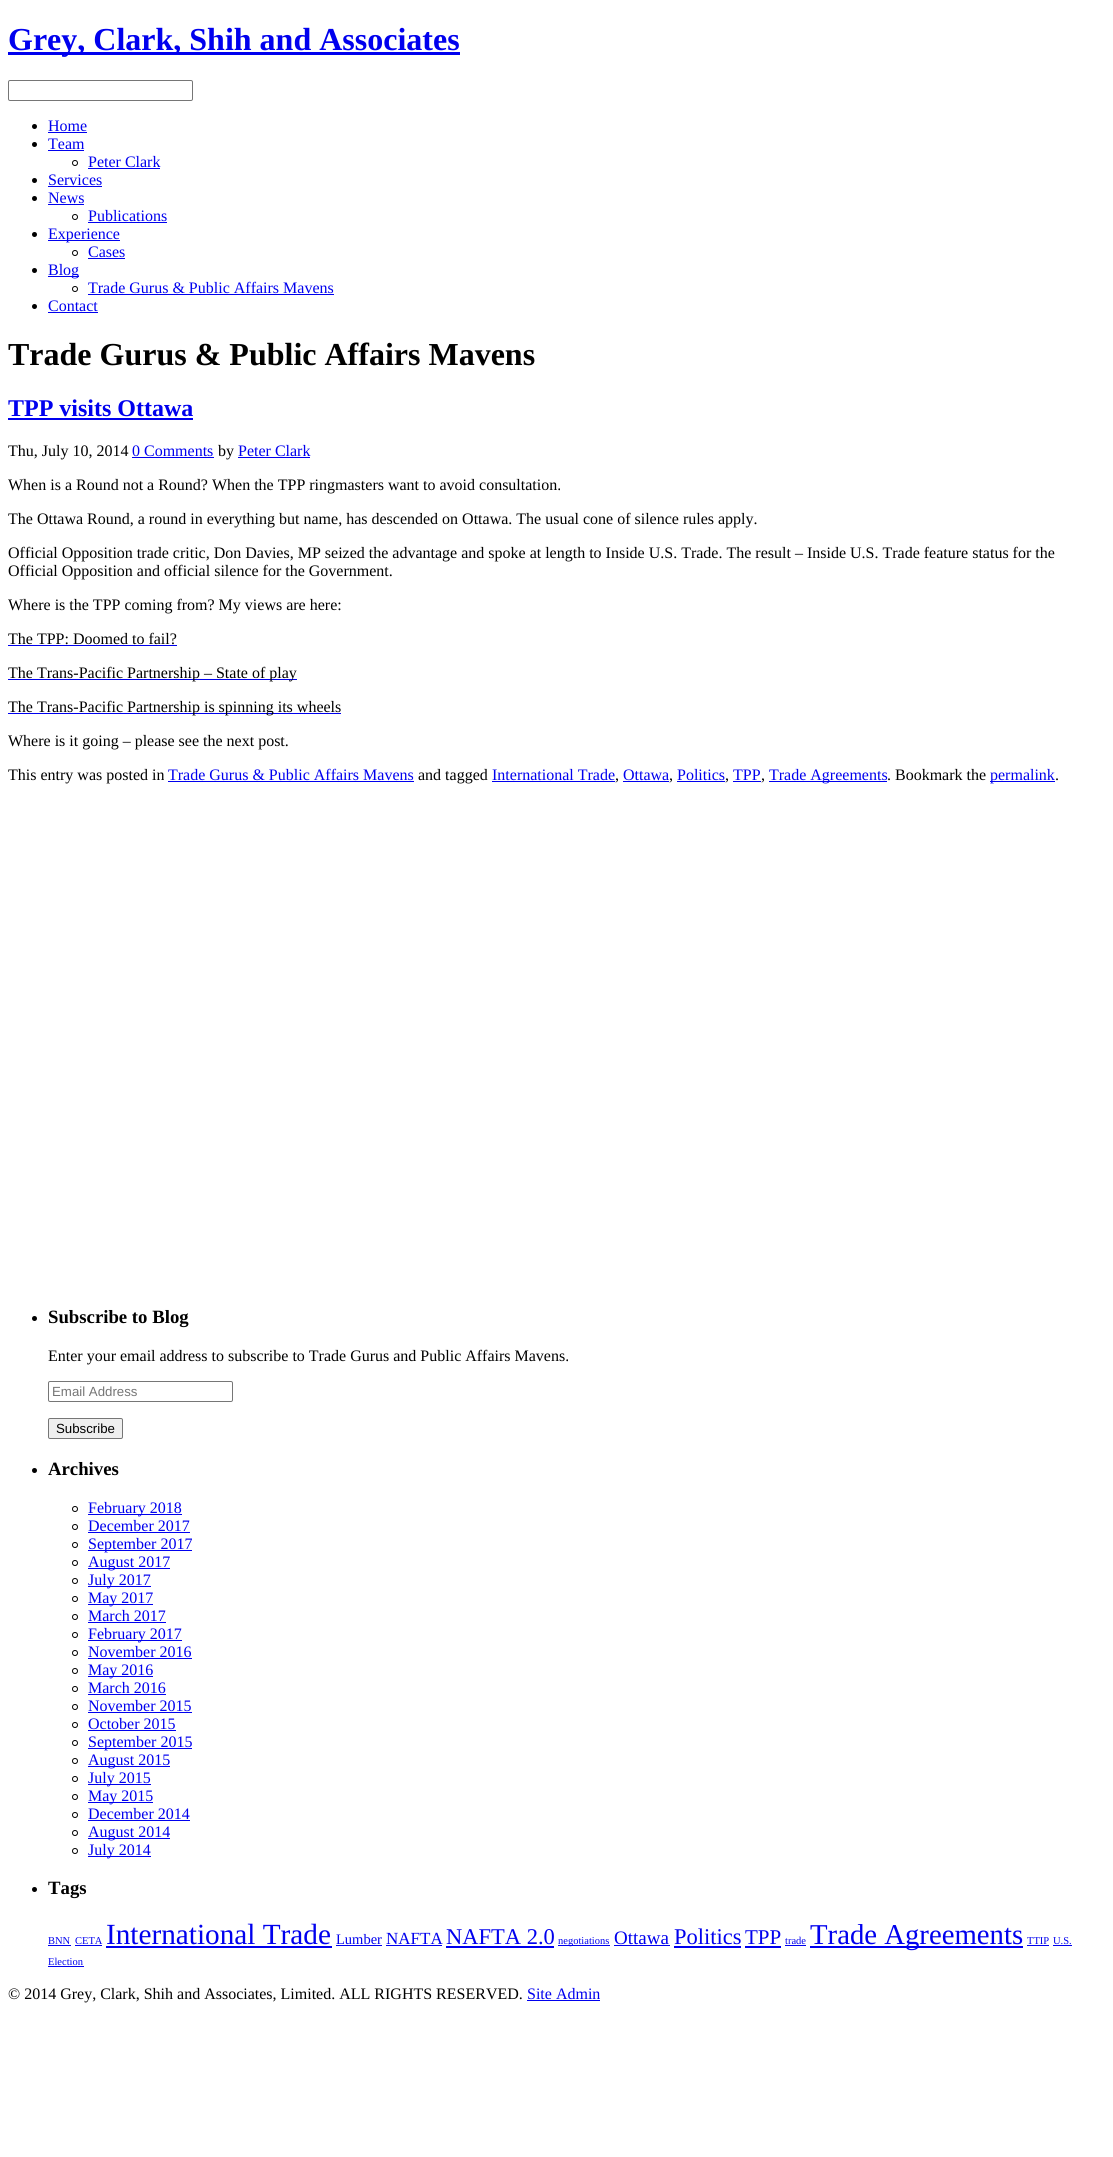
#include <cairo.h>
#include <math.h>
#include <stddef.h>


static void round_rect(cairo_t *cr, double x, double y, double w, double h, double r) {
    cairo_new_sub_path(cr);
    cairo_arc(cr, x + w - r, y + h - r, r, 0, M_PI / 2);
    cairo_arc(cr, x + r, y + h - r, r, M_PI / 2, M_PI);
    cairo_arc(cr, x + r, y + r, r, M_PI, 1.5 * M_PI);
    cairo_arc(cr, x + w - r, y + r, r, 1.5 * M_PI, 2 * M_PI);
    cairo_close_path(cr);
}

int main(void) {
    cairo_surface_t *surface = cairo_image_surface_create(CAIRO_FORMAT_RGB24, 1113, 2157);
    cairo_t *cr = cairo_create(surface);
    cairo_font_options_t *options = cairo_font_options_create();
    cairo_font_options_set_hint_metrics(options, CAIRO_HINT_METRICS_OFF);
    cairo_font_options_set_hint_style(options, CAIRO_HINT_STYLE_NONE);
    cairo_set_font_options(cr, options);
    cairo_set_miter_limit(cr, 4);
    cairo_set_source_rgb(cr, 1, 1, 1);
    cairo_paint(cr);
    cairo_set_source_rgb(cr, 0, 0, 0.933);
    cairo_rectangle(cr, 8, 52, 452, 3);
    cairo_fill(cr);
    cairo_select_font_face(cr, "Liberation Serif", CAIRO_FONT_SLANT_NORMAL, CAIRO_FONT_WEIGHT_BOLD);
    cairo_set_font_size(cr, 32);
    cairo_move_to(cr, 8, 50);
    cairo_show_text(cr, "Grey, Clark, Shih and Associates");
    round_rect(cr, 8.5, 80.5, 184, 20, 1.5);
    cairo_set_source_rgb(cr, 0.463, 0.463, 0.463);
    cairo_set_line_width(cr, 1);
    cairo_stroke(cr);
    cairo_set_source_rgb(cr, 0, 0, 0);
    cairo_arc(cr, 34.5, 126.5, 2.5, 0, 2 * M_PI);
    cairo_fill(cr);
    cairo_select_font_face(cr, "Liberation Serif", CAIRO_FONT_SLANT_NORMAL, CAIRO_FONT_WEIGHT_NORMAL);
    cairo_set_font_size(cr, 16);
    cairo_set_source_rgb(cr, 0, 0, 0.933);
    cairo_move_to(cr, 48, 131);
    cairo_show_text(cr, "Home");
    cairo_rectangle(cr, 48, 132, 39, 1);
    cairo_fill(cr);
    cairo_set_source_rgb(cr, 0, 0, 0);
    cairo_arc(cr, 34.5, 144.5, 2.5, 0, 2 * M_PI);
    cairo_fill(cr);
    cairo_set_source_rgb(cr, 0, 0, 0.933);
    cairo_move_to(cr, 48, 149);
    cairo_show_text(cr, "Team");
    cairo_rectangle(cr, 48, 150, 36, 1);
    cairo_fill(cr);
    cairo_arc(cr, 75, 163, 2.5, 0, 2 * M_PI);
    cairo_set_source_rgb(cr, 0, 0, 0);
    cairo_stroke(cr);
    cairo_set_source_rgb(cr, 0, 0, 0.933);
    cairo_move_to(cr, 88, 167);
    cairo_show_text(cr, "Peter Clark");
    cairo_rectangle(cr, 88, 168, 72, 1);
    cairo_fill(cr);
    cairo_set_source_rgb(cr, 0, 0, 0);
    cairo_arc(cr, 34.5, 180.5, 2.5, 0, 2 * M_PI);
    cairo_fill(cr);
    cairo_set_source_rgb(cr, 0, 0, 0.933);
    cairo_move_to(cr, 48, 185);
    cairo_show_text(cr, "Services");
    cairo_rectangle(cr, 48, 186, 54, 1);
    cairo_fill(cr);
    cairo_set_source_rgb(cr, 0, 0, 0);
    cairo_arc(cr, 34.5, 198.5, 2.5, 0, 2 * M_PI);
    cairo_fill(cr);
    cairo_set_source_rgb(cr, 0, 0, 0.933);
    cairo_move_to(cr, 48, 203);
    cairo_show_text(cr, "News");
    cairo_rectangle(cr, 48, 204, 36, 1);
    cairo_fill(cr);
    cairo_arc(cr, 75, 217, 2.5, 0, 2 * M_PI);
    cairo_set_source_rgb(cr, 0, 0, 0);
    cairo_stroke(cr);
    cairo_set_source_rgb(cr, 0, 0, 0.933);
    cairo_move_to(cr, 88, 221);
    cairo_show_text(cr, "Publications");
    cairo_rectangle(cr, 88, 222, 79, 1);
    cairo_fill(cr);
    cairo_set_source_rgb(cr, 0, 0, 0);
    cairo_arc(cr, 34.5, 234.5, 2.5, 0, 2 * M_PI);
    cairo_fill(cr);
    cairo_set_source_rgb(cr, 0, 0, 0.933);
    cairo_rectangle(cr, 48, 240, 72, 1);
    cairo_fill(cr);
    cairo_move_to(cr, 48, 239);
    cairo_show_text(cr, "Experience");
    cairo_new_path(cr);
    cairo_arc(cr, 75, 253, 2.5, 0, 2 * M_PI);
    cairo_set_source_rgb(cr, 0, 0, 0);
    cairo_stroke(cr);
    cairo_set_source_rgb(cr, 0, 0, 0.933);
    cairo_move_to(cr, 88, 257);
    cairo_show_text(cr, "Cases");
    cairo_rectangle(cr, 88, 258, 37, 1);
    cairo_fill(cr);
    cairo_set_source_rgb(cr, 0, 0, 0);
    cairo_arc(cr, 34.5, 270.5, 2.5, 0, 2 * M_PI);
    cairo_fill(cr);
    cairo_set_source_rgb(cr, 0, 0, 0.933);
    cairo_rectangle(cr, 48, 276, 31, 1);
    cairo_fill(cr);
    cairo_move_to(cr, 48, 275);
    cairo_show_text(cr, "Blog");
    cairo_new_path(cr);
    cairo_arc(cr, 75, 289, 2.5, 0, 2 * M_PI);
    cairo_set_source_rgb(cr, 0, 0, 0);
    cairo_stroke(cr);
    cairo_set_source_rgb(cr, 0, 0, 0.933);
    cairo_move_to(cr, 88, 293);
    cairo_show_text(cr, "Trade Gurus & Public Affairs Mavens");
    cairo_rectangle(cr, 88, 294, 246, 1);
    cairo_fill(cr);
    cairo_set_source_rgb(cr, 0, 0, 0);
    cairo_arc(cr, 34.5, 306.5, 2.5, 0, 2 * M_PI);
    cairo_fill(cr);
    cairo_set_source_rgb(cr, 0, 0, 0.933);
    cairo_move_to(cr, 48, 311);
    cairo_show_text(cr, "Contact");
    cairo_rectangle(cr, 48, 312, 50, 1);
    cairo_fill(cr);
    cairo_select_font_face(cr, "Liberation Serif", CAIRO_FONT_SLANT_NORMAL, CAIRO_FONT_WEIGHT_BOLD);
    cairo_set_font_size(cr, 32);
    cairo_set_source_rgb(cr, 0, 0, 0);
    cairo_move_to(cr, 8, 365);
    cairo_show_text(cr, "Trade Gurus & Public Affairs Mavens");
    cairo_set_font_size(cr, 24);
    cairo_set_source_rgb(cr, 0, 0, 0.933);
    cairo_move_to(cr, 8, 416);
    cairo_show_text(cr, "TPP visits Ottawa");
    cairo_rectangle(cr, 8, 418, 185, 2);
    cairo_fill(cr);
    cairo_select_font_face(cr, "Liberation Serif", CAIRO_FONT_SLANT_NORMAL, CAIRO_FONT_WEIGHT_NORMAL);
    cairo_set_font_size(cr, 16);
    cairo_set_source_rgb(cr, 0, 0, 0);
    cairo_move_to(cr, 8, 456);
    cairo_show_text(cr, "Thu, July 10, 2014");
    cairo_set_source_rgb(cr, 0, 0, 0.933);
    cairo_move_to(cr, 132, 456);
    cairo_show_text(cr, "0 Comments");
    cairo_rectangle(cr, 132, 457, 82, 1);
    cairo_fill(cr);
    cairo_set_source_rgb(cr, 0, 0, 0);
    cairo_move_to(cr, 218, 456);
    cairo_show_text(cr, "by");
    cairo_set_source_rgb(cr, 0, 0, 0.933);
    cairo_move_to(cr, 238, 456);
    cairo_show_text(cr, "Peter Clark");
    cairo_rectangle(cr, 238, 457, 72, 1);
    cairo_fill(cr);
    cairo_set_source_rgb(cr, 0, 0, 0);
    cairo_move_to(cr, 8, 490);
    cairo_show_text(cr, "When is a Round not a Round? When the TPP ringmasters want to avoid consultation.");
    cairo_move_to(cr, 8, 524);
    cairo_show_text(cr, "The Ottawa Round, a round in everything but name, has descended on Ottawa. The usual cone of silence rules apply.");
    cairo_move_to(cr, 8, 558);
    cairo_show_text(cr, "Official Opposition trade critic, Don Davies, MP seized the advantage and spoke at length to Inside U.S. Trade. The result – Inside U.S. Trade feature status for the");
    cairo_move_to(cr, 8, 576);
    cairo_show_text(cr, "Official Opposition and official silence for the Government.");
    cairo_move_to(cr, 8, 610);
    cairo_show_text(cr, "Where is the TPP coming from? My views are here:");
    cairo_move_to(cr, 8, 644);
    cairo_show_text(cr, "The TPP: Doomed to fail?");
    cairo_set_source_rgb(cr, 0, 0, 0.933);
    cairo_rectangle(cr, 8, 645, 169, 1);
    cairo_fill(cr);
    cairo_rectangle(cr, 8, 679, 289, 1);
    cairo_fill(cr);
    cairo_set_source_rgb(cr, 0, 0, 0);
    cairo_move_to(cr, 8, 678);
    cairo_show_text(cr, "The Trans-Pacific Partnership – State of play");
    cairo_set_source_rgb(cr, 0, 0, 0.933);
    cairo_rectangle(cr, 8, 713, 333, 1);
    cairo_fill(cr);
    cairo_set_source_rgb(cr, 0, 0, 0);
    cairo_move_to(cr, 8, 712);
    cairo_show_text(cr, "The Trans-Pacific Partnership is spinning its wheels");
    cairo_move_to(cr, 8, 746);
    cairo_show_text(cr, "Where is it going – please see the next post.");
    cairo_move_to(cr, 8, 780);
    cairo_show_text(cr, "This entry was posted in");
    cairo_set_source_rgb(cr, 0, 0, 0.933);
    cairo_move_to(cr, 168, 780);
    cairo_show_text(cr, "Trade Gurus & Public Affairs Mavens");
    cairo_rectangle(cr, 168, 781, 246, 1);
    cairo_fill(cr);
    cairo_set_source_rgb(cr, 0, 0, 0);
    cairo_move_to(cr, 418, 780);
    cairo_show_text(cr, "and tagged");
    cairo_set_source_rgb(cr, 0, 0, 0.933);
    cairo_move_to(cr, 492, 780);
    cairo_show_text(cr, "International Trade");
    cairo_rectangle(cr, 492, 781, 123, 1);
    cairo_fill(cr);
    cairo_move_to(cr, 623, 780);
    cairo_show_text(cr, "Ottawa");
    cairo_rectangle(cr, 623, 781, 46, 1);
    cairo_fill(cr);
    cairo_move_to(cr, 677, 780);
    cairo_show_text(cr, "Politics");
    cairo_rectangle(cr, 677, 781, 48, 1);
    cairo_fill(cr);
    cairo_move_to(cr, 733, 780);
    cairo_show_text(cr, "TPP");
    cairo_rectangle(cr, 733, 781, 28, 1);
    cairo_fill(cr);
    cairo_rectangle(cr, 769, 781, 118, 1);
    cairo_fill(cr);
    cairo_move_to(cr, 769, 780);
    cairo_show_text(cr, "Trade Agreements");
    cairo_set_source_rgb(cr, 0, 0, 0);
    cairo_move_to(cr, 887, 780);
    cairo_show_text(cr, ". Bookmark the");
    cairo_set_source_rgb(cr, 0, 0, 0.933);
    cairo_rectangle(cr, 990, 781, 65, 1);
    cairo_fill(cr);
    cairo_move_to(cr, 990, 780);
    cairo_show_text(cr, "permalink");
    cairo_set_source_rgb(cr, 0, 0, 0);
    cairo_move_to(cr, 615, 780);
    cairo_show_text(cr, ",");
    cairo_move_to(cr, 669, 780);
    cairo_show_text(cr, ",");
    cairo_move_to(cr, 725, 780);
    cairo_show_text(cr, ",");
    cairo_move_to(cr, 761, 780);
    cairo_show_text(cr, ",");
    cairo_move_to(cr, 1055, 780);
    cairo_show_text(cr, ".");
    cairo_new_path(cr);
    cairo_arc(cr, 34.5, 1318.5, 2.5, 0, 2 * M_PI);
    cairo_fill(cr);
    cairo_select_font_face(cr, "Liberation Serif", CAIRO_FONT_SLANT_NORMAL, CAIRO_FONT_WEIGHT_BOLD);
    cairo_set_font_size(cr, 18.75);
    cairo_move_to(cr, 48, 1323);
    cairo_show_text(cr, "Subscribe to Blog");
    cairo_select_font_face(cr, "Liberation Serif", CAIRO_FONT_SLANT_NORMAL, CAIRO_FONT_WEIGHT_NORMAL);
    cairo_set_font_size(cr, 16);
    cairo_move_to(cr, 48, 1361);
    cairo_show_text(cr, "Enter your email address to subscribe to Trade Gurus and Public Affairs Mavens.");
    round_rect(cr, 48.5, 1381.5, 184, 20, 1.5);
    cairo_set_source_rgb(cr, 0.463, 0.463, 0.463);
    cairo_stroke(cr);
    cairo_select_font_face(cr, "Liberation Sans", CAIRO_FONT_SLANT_NORMAL, CAIRO_FONT_WEIGHT_NORMAL);
    cairo_set_font_size(cr, 13.25);
    cairo_set_source_rgb(cr, 0.459, 0.459, 0.459);
    cairo_move_to(cr, 52, 1396);
    cairo_show_text(cr, "Email Address");
    cairo_set_source_rgb(cr, 0.937, 0.937, 0.937);
    round_rect(cr, 48.5, 1418.5, 74, 20, 1.5);
    cairo_fill_preserve(cr);
    cairo_set_source_rgb(cr, 0.463, 0.463, 0.463);
    cairo_stroke(cr);
    cairo_set_source_rgb(cr, 0, 0, 0);
    cairo_move_to(cr, 56, 1433);
    cairo_show_text(cr, "Subscribe");
    cairo_new_path(cr);
    cairo_arc(cr, 34.5, 1470.5, 2.5, 0, 2 * M_PI);
    cairo_fill(cr);
    cairo_select_font_face(cr, "Liberation Serif", CAIRO_FONT_SLANT_NORMAL, CAIRO_FONT_WEIGHT_BOLD);
    cairo_set_font_size(cr, 18.75);
    cairo_move_to(cr, 48, 1475);
    cairo_show_text(cr, "Archives");
    cairo_new_path(cr);
    cairo_arc(cr, 75, 1509, 2.5, 0, 2 * M_PI);
    cairo_stroke(cr);
    cairo_set_source_rgb(cr, 0, 0, 0.933);
    cairo_rectangle(cr, 88, 1514, 94, 1);
    cairo_fill(cr);
    cairo_select_font_face(cr, "Liberation Serif", CAIRO_FONT_SLANT_NORMAL, CAIRO_FONT_WEIGHT_NORMAL);
    cairo_set_font_size(cr, 16);
    cairo_move_to(cr, 88, 1513);
    cairo_show_text(cr, "February 2018");
    cairo_new_path(cr);
    cairo_arc(cr, 75, 1527, 2.5, 0, 2 * M_PI);
    cairo_set_source_rgb(cr, 0, 0, 0);
    cairo_stroke(cr);
    cairo_set_source_rgb(cr, 0, 0, 0.933);
    cairo_move_to(cr, 88, 1531);
    cairo_show_text(cr, "December 2017");
    cairo_rectangle(cr, 88, 1532, 102, 1);
    cairo_fill(cr);
    cairo_arc(cr, 75, 1545, 2.5, 0, 2 * M_PI);
    cairo_set_source_rgb(cr, 0, 0, 0);
    cairo_stroke(cr);
    cairo_set_source_rgb(cr, 0, 0, 0.933);
    cairo_rectangle(cr, 88, 1550, 104, 1);
    cairo_fill(cr);
    cairo_move_to(cr, 88, 1549);
    cairo_show_text(cr, "September 2017");
    cairo_new_path(cr);
    cairo_arc(cr, 75, 1563, 2.5, 0, 2 * M_PI);
    cairo_set_source_rgb(cr, 0, 0, 0);
    cairo_stroke(cr);
    cairo_set_source_rgb(cr, 0, 0, 0.933);
    cairo_rectangle(cr, 88, 1568, 82, 1);
    cairo_fill(cr);
    cairo_move_to(cr, 88, 1567);
    cairo_show_text(cr, "August 2017");
    cairo_new_path(cr);
    cairo_arc(cr, 75, 1581, 2.5, 0, 2 * M_PI);
    cairo_set_source_rgb(cr, 0, 0, 0);
    cairo_stroke(cr);
    cairo_set_source_rgb(cr, 0, 0, 0.933);
    cairo_rectangle(cr, 88, 1586, 63, 1);
    cairo_fill(cr);
    cairo_move_to(cr, 88, 1585);
    cairo_show_text(cr, "July 2017");
    cairo_new_path(cr);
    cairo_arc(cr, 75, 1599, 2.5, 0, 2 * M_PI);
    cairo_set_source_rgb(cr, 0, 0, 0);
    cairo_stroke(cr);
    cairo_set_source_rgb(cr, 0, 0, 0.933);
    cairo_rectangle(cr, 88, 1604, 65, 1);
    cairo_fill(cr);
    cairo_move_to(cr, 88, 1603);
    cairo_show_text(cr, "May 2017");
    cairo_new_path(cr);
    cairo_arc(cr, 75, 1617, 2.5, 0, 2 * M_PI);
    cairo_set_source_rgb(cr, 0, 0, 0);
    cairo_stroke(cr);
    cairo_set_source_rgb(cr, 0, 0, 0.933);
    cairo_move_to(cr, 88, 1621);
    cairo_show_text(cr, "March 2017");
    cairo_rectangle(cr, 88, 1622, 78, 1);
    cairo_fill(cr);
    cairo_arc(cr, 75, 1635, 2.5, 0, 2 * M_PI);
    cairo_set_source_rgb(cr, 0, 0, 0);
    cairo_stroke(cr);
    cairo_set_source_rgb(cr, 0, 0, 0.933);
    cairo_rectangle(cr, 88, 1640, 94, 1);
    cairo_fill(cr);
    cairo_move_to(cr, 88, 1639);
    cairo_show_text(cr, "February 2017");
    cairo_new_path(cr);
    cairo_arc(cr, 75, 1653, 2.5, 0, 2 * M_PI);
    cairo_set_source_rgb(cr, 0, 0, 0);
    cairo_stroke(cr);
    cairo_set_source_rgb(cr, 0, 0, 0.933);
    cairo_move_to(cr, 88, 1657);
    cairo_show_text(cr, "November 2016");
    cairo_rectangle(cr, 88, 1658, 104, 1);
    cairo_fill(cr);
    cairo_arc(cr, 75, 1671, 2.5, 0, 2 * M_PI);
    cairo_set_source_rgb(cr, 0, 0, 0);
    cairo_stroke(cr);
    cairo_set_source_rgb(cr, 0, 0, 0.933);
    cairo_rectangle(cr, 88, 1676, 65, 1);
    cairo_fill(cr);
    cairo_move_to(cr, 88, 1675);
    cairo_show_text(cr, "May 2016");
    cairo_new_path(cr);
    cairo_arc(cr, 75, 1689, 2.5, 0, 2 * M_PI);
    cairo_set_source_rgb(cr, 0, 0, 0);
    cairo_stroke(cr);
    cairo_set_source_rgb(cr, 0, 0, 0.933);
    cairo_move_to(cr, 88, 1693);
    cairo_show_text(cr, "March 2016");
    cairo_rectangle(cr, 88, 1694, 78, 1);
    cairo_fill(cr);
    cairo_arc(cr, 75, 1707, 2.5, 0, 2 * M_PI);
    cairo_set_source_rgb(cr, 0, 0, 0);
    cairo_stroke(cr);
    cairo_set_source_rgb(cr, 0, 0, 0.933);
    cairo_move_to(cr, 88, 1711);
    cairo_show_text(cr, "November 2015");
    cairo_rectangle(cr, 88, 1712, 104, 1);
    cairo_fill(cr);
    cairo_arc(cr, 75, 1725, 2.5, 0, 2 * M_PI);
    cairo_set_source_rgb(cr, 0, 0, 0);
    cairo_stroke(cr);
    cairo_set_source_rgb(cr, 0, 0, 0.933);
    cairo_move_to(cr, 88, 1729);
    cairo_show_text(cr, "October 2015");
    cairo_rectangle(cr, 88, 1730, 88, 1);
    cairo_fill(cr);
    cairo_arc(cr, 75, 1743, 2.5, 0, 2 * M_PI);
    cairo_set_source_rgb(cr, 0, 0, 0);
    cairo_stroke(cr);
    cairo_set_source_rgb(cr, 0, 0, 0.933);
    cairo_rectangle(cr, 88, 1748, 104, 1);
    cairo_fill(cr);
    cairo_move_to(cr, 88, 1747);
    cairo_show_text(cr, "September 2015");
    cairo_new_path(cr);
    cairo_arc(cr, 75, 1761, 2.5, 0, 2 * M_PI);
    cairo_set_source_rgb(cr, 0, 0, 0);
    cairo_stroke(cr);
    cairo_set_source_rgb(cr, 0, 0, 0.933);
    cairo_rectangle(cr, 88, 1766, 82, 1);
    cairo_fill(cr);
    cairo_move_to(cr, 88, 1765);
    cairo_show_text(cr, "August 2015");
    cairo_new_path(cr);
    cairo_arc(cr, 75, 1779, 2.5, 0, 2 * M_PI);
    cairo_set_source_rgb(cr, 0, 0, 0);
    cairo_stroke(cr);
    cairo_set_source_rgb(cr, 0, 0, 0.933);
    cairo_rectangle(cr, 88, 1784, 63, 1);
    cairo_fill(cr);
    cairo_move_to(cr, 88, 1783);
    cairo_show_text(cr, "July 2015");
    cairo_new_path(cr);
    cairo_arc(cr, 75, 1797, 2.5, 0, 2 * M_PI);
    cairo_set_source_rgb(cr, 0, 0, 0);
    cairo_stroke(cr);
    cairo_set_source_rgb(cr, 0, 0, 0.933);
    cairo_rectangle(cr, 88, 1802, 65, 1);
    cairo_fill(cr);
    cairo_move_to(cr, 88, 1801);
    cairo_show_text(cr, "May 2015");
    cairo_new_path(cr);
    cairo_arc(cr, 75, 1815, 2.5, 0, 2 * M_PI);
    cairo_set_source_rgb(cr, 0, 0, 0);
    cairo_stroke(cr);
    cairo_set_source_rgb(cr, 0, 0, 0.933);
    cairo_move_to(cr, 88, 1819);
    cairo_show_text(cr, "December 2014");
    cairo_rectangle(cr, 88, 1820, 102, 1);
    cairo_fill(cr);
    cairo_arc(cr, 75, 1833, 2.5, 0, 2 * M_PI);
    cairo_set_source_rgb(cr, 0, 0, 0);
    cairo_stroke(cr);
    cairo_set_source_rgb(cr, 0, 0, 0.933);
    cairo_rectangle(cr, 88, 1838, 82, 1);
    cairo_fill(cr);
    cairo_move_to(cr, 88, 1837);
    cairo_show_text(cr, "August 2014");
    cairo_new_path(cr);
    cairo_arc(cr, 75, 1851, 2.5, 0, 2 * M_PI);
    cairo_set_source_rgb(cr, 0, 0, 0);
    cairo_stroke(cr);
    cairo_set_source_rgb(cr, 0, 0, 0.933);
    cairo_rectangle(cr, 88, 1856, 63, 1);
    cairo_fill(cr);
    cairo_move_to(cr, 88, 1855);
    cairo_show_text(cr, "July 2014");
    cairo_set_source_rgb(cr, 0, 0, 0);
    cairo_new_path(cr);
    cairo_arc(cr, 34.5, 1889.5, 2.5, 0, 2 * M_PI);
    cairo_fill(cr);
    cairo_select_font_face(cr, "Liberation Serif", CAIRO_FONT_SLANT_NORMAL, CAIRO_FONT_WEIGHT_BOLD);
    cairo_set_font_size(cr, 18.75);
    cairo_move_to(cr, 48, 1894);
    cairo_show_text(cr, "Tags");
    cairo_select_font_face(cr, "Liberation Serif", CAIRO_FONT_SLANT_NORMAL, CAIRO_FONT_WEIGHT_NORMAL);
    cairo_set_font_size(cr, 10.5);
    cairo_set_source_rgb(cr, 0, 0, 0.933);
    cairo_move_to(cr, 48, 1944);
    cairo_show_text(cr, "BNN");
    cairo_rectangle(cr, 48, 1945, 23, 1);
    cairo_fill(cr);
    cairo_move_to(cr, 75, 1944);
    cairo_show_text(cr, "CETA");
    cairo_rectangle(cr, 75, 1945, 27, 1);
    cairo_fill(cr);
    cairo_set_font_size(cr, 29.25);
    cairo_move_to(cr, 106, 1944);
    cairo_show_text(cr, "International Trade");
    cairo_rectangle(cr, 106, 1946, 226, 2);
    cairo_fill(cr);
    cairo_set_font_size(cr, 14.5);
    cairo_move_to(cr, 336, 1944);
    cairo_show_text(cr, "Lumber");
    cairo_rectangle(cr, 336, 1945, 46, 1);
    cairo_fill(cr);
    cairo_set_font_size(cr, 17);
    cairo_move_to(cr, 386, 1944);
    cairo_show_text(cr, "NAFTA");
    cairo_rectangle(cr, 386, 1945, 56, 1);
    cairo_fill(cr);
    cairo_set_font_size(cr, 22.5);
    cairo_move_to(cr, 446, 1944);
    cairo_show_text(cr, "NAFTA 2.0");
    cairo_rectangle(cr, 446, 1946, 108, 2);
    cairo_fill(cr);
    cairo_rectangle(cr, 558, 1945, 52, 1);
    cairo_fill(cr);
    cairo_set_font_size(cr, 10.5);
    cairo_move_to(cr, 558, 1944);
    cairo_show_text(cr, "negotiations");
    cairo_set_font_size(cr, 19);
    cairo_move_to(cr, 614, 1944);
    cairo_show_text(cr, "Ottawa");
    cairo_rectangle(cr, 614, 1945, 56, 1);
    cairo_fill(cr);
    cairo_set_font_size(cr, 22.5);
    cairo_move_to(cr, 674, 1944);
    cairo_show_text(cr, "Politics");
    cairo_rectangle(cr, 674, 1946, 67, 2);
    cairo_fill(cr);
    cairo_set_font_size(cr, 21);
    cairo_move_to(cr, 745, 1944);
    cairo_show_text(cr, "TPP");
    cairo_rectangle(cr, 745, 1946, 36, 2);
    cairo_fill(cr);
    cairo_set_font_size(cr, 10.5);
    cairo_move_to(cr, 785, 1944);
    cairo_show_text(cr, "trade");
    cairo_rectangle(cr, 785, 1945, 21, 1);
    cairo_fill(cr);
    cairo_rectangle(cr, 810, 1946, 213, 2);
    cairo_fill(cr);
    cairo_set_font_size(cr, 28.75);
    cairo_move_to(cr, 810, 1944);
    cairo_show_text(cr, "Trade Agreements");
    cairo_set_font_size(cr, 10.5);
    cairo_move_to(cr, 1027, 1944);
    cairo_show_text(cr, "TTIP");
    cairo_rectangle(cr, 1027, 1945, 22, 1);
    cairo_fill(cr);
    cairo_move_to(cr, 1053, 1944);
    cairo_show_text(cr, "U.S.");
    cairo_rectangle(cr, 1053, 1945, 19, 1);
    cairo_fill(cr);
    cairo_move_to(cr, 48, 1965);
    cairo_show_text(cr, "Election");
    cairo_rectangle(cr, 48, 1966, 36, 1);
    cairo_fill(cr);
    cairo_set_font_size(cr, 16);
    cairo_set_source_rgb(cr, 0, 0, 0);
    cairo_move_to(cr, 8, 1999);
    cairo_show_text(cr, "© 2014 Grey, Clark, Shih and Associates, Limited. ALL RIGHTS RESERVED.");
    cairo_set_source_rgb(cr, 0, 0, 0.933);
    cairo_move_to(cr, 527, 1999);
    cairo_show_text(cr, "Site Admin");
    cairo_rectangle(cr, 527, 2000, 73, 1);
    cairo_fill(cr);
    cairo_surface_write_to_png(surface, "page.png");
    cairo_font_options_destroy(options);
    cairo_destroy(cr);
    cairo_surface_destroy(surface);
    return 0;
}
